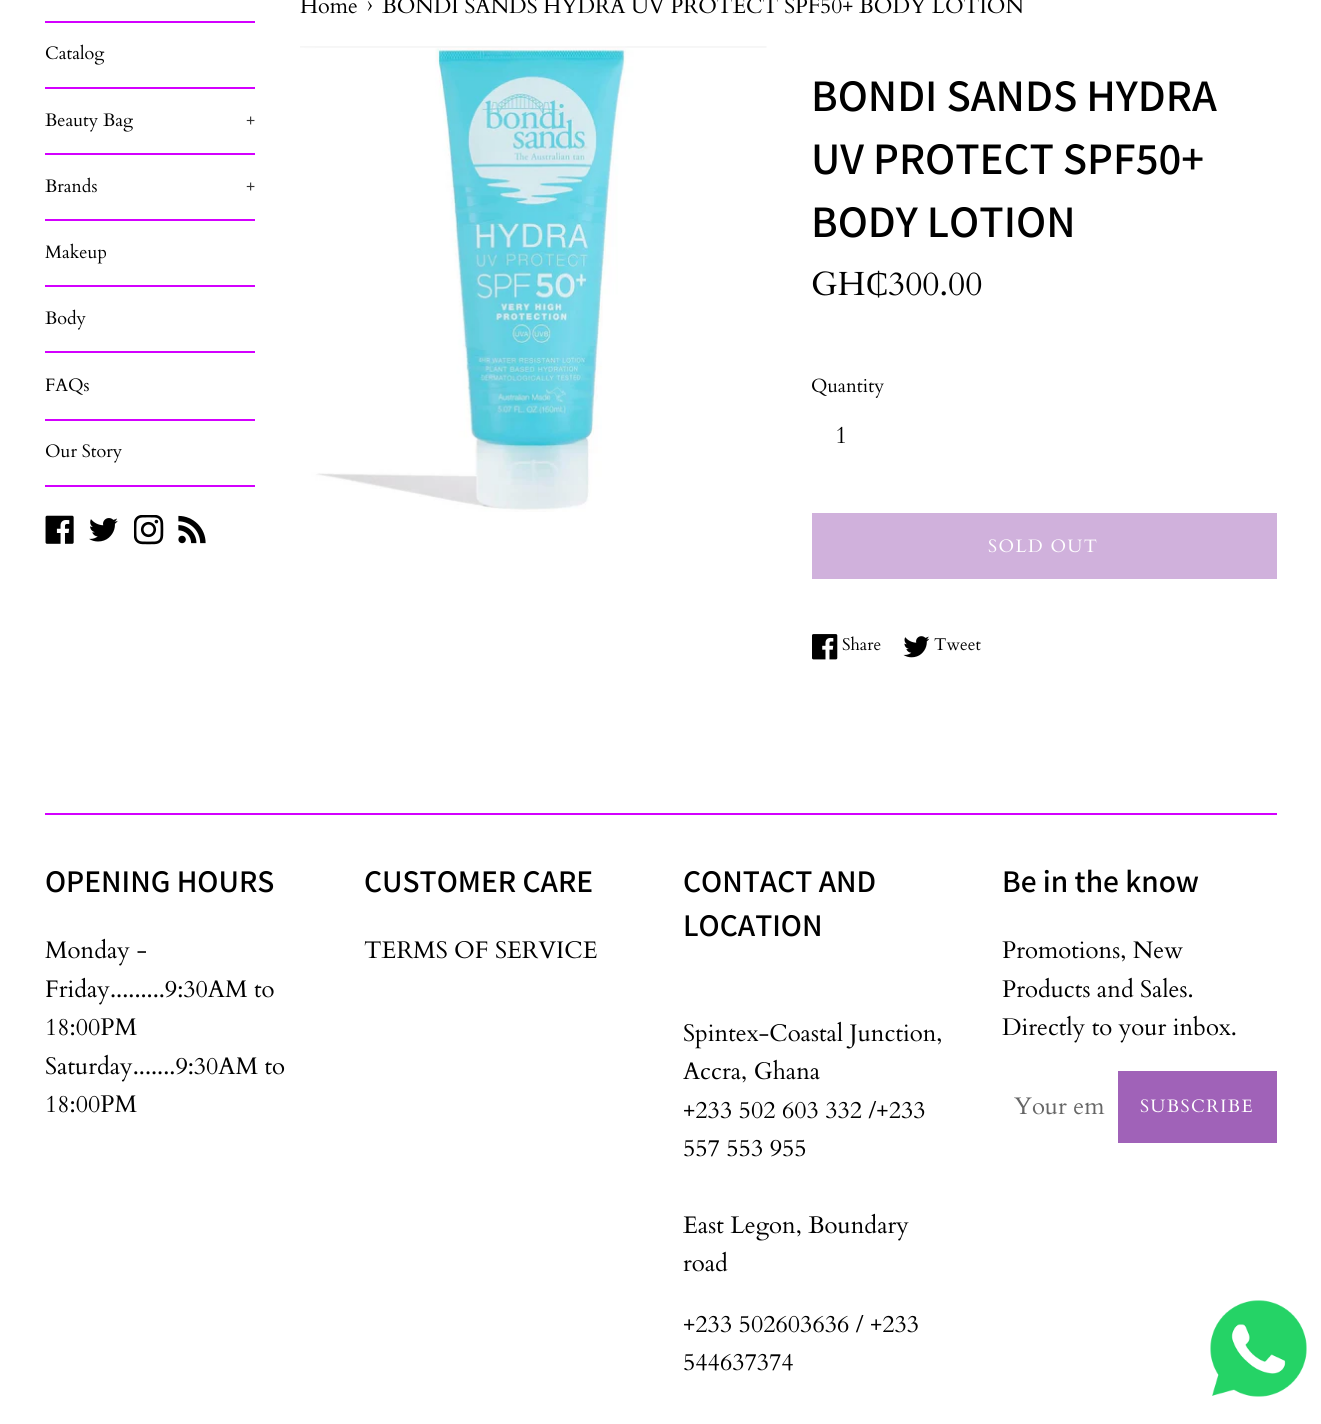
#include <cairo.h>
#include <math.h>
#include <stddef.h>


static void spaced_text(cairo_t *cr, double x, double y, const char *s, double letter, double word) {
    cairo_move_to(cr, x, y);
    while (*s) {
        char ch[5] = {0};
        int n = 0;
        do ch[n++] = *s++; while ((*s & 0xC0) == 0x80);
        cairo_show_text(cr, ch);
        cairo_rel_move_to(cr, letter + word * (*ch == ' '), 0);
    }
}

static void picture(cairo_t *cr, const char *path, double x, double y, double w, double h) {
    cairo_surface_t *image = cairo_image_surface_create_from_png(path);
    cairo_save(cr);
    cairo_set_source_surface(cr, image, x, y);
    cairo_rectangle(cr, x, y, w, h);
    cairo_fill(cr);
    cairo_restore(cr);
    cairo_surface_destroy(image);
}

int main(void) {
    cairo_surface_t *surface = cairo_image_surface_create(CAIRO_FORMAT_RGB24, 1321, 1424);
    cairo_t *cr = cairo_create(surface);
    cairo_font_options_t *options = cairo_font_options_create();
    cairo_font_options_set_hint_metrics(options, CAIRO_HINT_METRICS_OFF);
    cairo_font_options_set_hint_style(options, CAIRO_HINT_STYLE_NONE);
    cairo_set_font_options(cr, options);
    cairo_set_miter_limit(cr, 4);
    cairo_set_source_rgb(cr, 1, 1, 1);
    cairo_paint(cr);
    cairo_set_source_rgb(cr, 0.827, 0, 1);
    cairo_rectangle(cr, 45, 21, 210, 2);
    cairo_fill(cr);
    cairo_rectangle(cr, 45, 87, 210, 2);
    cairo_fill(cr);
    cairo_select_font_face(cr, "Cardo", CAIRO_FONT_SLANT_NORMAL, CAIRO_FONT_WEIGHT_NORMAL);
    cairo_set_font_size(cr, 18);
    cairo_set_source_rgb(cr, 0, 0, 0);
    cairo_move_to(cr, 45, 59);
    cairo_show_text(cr, "Catalog");
    cairo_set_source_rgb(cr, 0.827, 0, 1);
    cairo_rectangle(cr, 45, 153, 210, 2);
    cairo_fill(cr);
    cairo_set_source_rgb(cr, 0, 0, 0);
    cairo_move_to(cr, 45, 126);
    cairo_show_text(cr, "Beauty Bag");
    cairo_set_source_rgb(cr, 0.2, 0.2, 0.2);
    cairo_move_to(cr, 246, 126);
    cairo_show_text(cr, "+");
    cairo_set_source_rgb(cr, 0.827, 0, 1);
    cairo_rectangle(cr, 45, 219, 210, 2);
    cairo_fill(cr);
    cairo_set_source_rgb(cr, 0, 0, 0);
    cairo_move_to(cr, 45, 192);
    cairo_show_text(cr, "Brands");
    cairo_set_source_rgb(cr, 0.2, 0.2, 0.2);
    cairo_move_to(cr, 246, 192);
    cairo_show_text(cr, "+");
    cairo_set_source_rgb(cr, 0.827, 0, 1);
    cairo_rectangle(cr, 45, 285, 210, 2);
    cairo_fill(cr);
    cairo_set_source_rgb(cr, 0, 0, 0);
    cairo_move_to(cr, 45, 258);
    cairo_show_text(cr, "Makeup");
    cairo_set_source_rgb(cr, 0.827, 0, 1);
    cairo_rectangle(cr, 45, 351, 210, 2);
    cairo_fill(cr);
    cairo_set_source_rgb(cr, 0, 0, 0);
    cairo_move_to(cr, 45, 324);
    cairo_show_text(cr, "Body");
    cairo_set_source_rgb(cr, 0.827, 0, 1);
    cairo_rectangle(cr, 45, 419, 210, 2);
    cairo_fill(cr);
    cairo_set_source_rgb(cr, 0, 0, 0);
    cairo_move_to(cr, 45, 391);
    cairo_show_text(cr, "FAQs");
    cairo_set_source_rgb(cr, 0.827, 0, 1);
    cairo_rectangle(cr, 45, 485, 210, 2);
    cairo_fill(cr);
    cairo_set_source_rgb(cr, 0, 0, 0);
    cairo_move_to(cr, 45, 457);
    cairo_show_text(cr, "Our Story");
    picture(cr, "img1.png", 45, 515, 29, 29);
    picture(cr, "img2.png", 89, 518, 29, 24);
    picture(cr, "img3.png", 134, 515, 30, 30);
    picture(cr, "img4.png", 178, 515, 28, 29);
    cairo_set_font_size(cr, 21.6);
    cairo_move_to(cr, 300, 13);
    cairo_show_text(cr, "Home");
    cairo_set_font_size(cr, 26);
    cairo_move_to(cr, 367, 13);
    cairo_show_text(cr, "›");
    cairo_set_font_size(cr, 21.6);
    cairo_move_to(cr, 382, 13);
    cairo_show_text(cr, "BONDI SANDS HYDRA UV PROTECT SPF50+ BODY LOTION");
    picture(cr, "img5.png", 300, 46, 467, 466);
    cairo_select_font_face(cr, "Assistant SemiBold", CAIRO_FONT_SLANT_NORMAL, CAIRO_FONT_WEIGHT_NORMAL);
    cairo_set_font_size(cr, 45);
    cairo_move_to(cr, 811, 111);
    cairo_show_text(cr, "BONDI SANDS HYDRA");
    cairo_move_to(cr, 811, 174);
    cairo_show_text(cr, "UV PROTECT SPF50+");
    cairo_move_to(cr, 811, 237);
    cairo_show_text(cr, "BODY LOTION");
    cairo_select_font_face(cr, "Cardo", CAIRO_FONT_SLANT_NORMAL, CAIRO_FONT_WEIGHT_NORMAL);
    cairo_set_font_size(cr, 33.5);
    cairo_move_to(cr, 811, 295);
    cairo_show_text(cr, "GH");
    cairo_select_font_face(cr, "Liberation Serif", CAIRO_FONT_SLANT_NORMAL, CAIRO_FONT_WEIGHT_NORMAL);
    cairo_move_to(cr, 866, 295);
    cairo_show_text(cr, "₵");
    cairo_select_font_face(cr, "Cardo", CAIRO_FONT_SLANT_NORMAL, CAIRO_FONT_WEIGHT_NORMAL);
    cairo_move_to(cr, 888, 295);
    cairo_show_text(cr, "300.00");
    cairo_set_font_size(cr, 19);
    cairo_move_to(cr, 811, 392);
    cairo_show_text(cr, "Quantity");
    cairo_set_font_size(cr, 24);
    cairo_move_to(cr, 835, 443);
    cairo_show_text(cr, "1");
    cairo_set_source_rgb(cr, 0.816, 0.694, 0.863);
    cairo_rectangle(cr, 812, 513, 465, 66);
    cairo_fill(cr);
    cairo_set_font_size(cr, 18);
    cairo_set_source_rgb(cr, 1, 1, 1);
    spaced_text(cr, 988, 552, "SOLD OUT", 1.5, 0);
    picture(cr, "img6.png", 812, 634, 26, 26);
    cairo_set_font_size(cr, 17);
    cairo_set_source_rgb(cr, 0, 0, 0);
    cairo_move_to(cr, 842, 650);
    cairo_show_text(cr, "Share");
    picture(cr, "img7.png", 903, 636, 27, 22);
    cairo_move_to(cr, 934, 650);
    cairo_show_text(cr, "Tweet");
    cairo_set_source_rgb(cr, 0.827, 0, 1);
    cairo_rectangle(cr, 45, 813, 1232, 2);
    cairo_fill(cr);
    cairo_select_font_face(cr, "Assistant SemiBold", CAIRO_FONT_SLANT_NORMAL, CAIRO_FONT_WEIGHT_NORMAL);
    cairo_set_font_size(cr, 31.5);
    cairo_set_source_rgb(cr, 0, 0, 0);
    cairo_move_to(cr, 45, 892);
    cairo_show_text(cr, "OPENING HOURS");
    cairo_select_font_face(cr, "Cardo", CAIRO_FONT_SLANT_NORMAL, CAIRO_FONT_WEIGHT_NORMAL);
    cairo_set_font_size(cr, 24);
    cairo_move_to(cr, 45, 958);
    cairo_show_text(cr, "Monday -");
    cairo_move_to(cr, 45, 997);
    cairo_show_text(cr, "Friday.........9:30AM to");
    cairo_move_to(cr, 45, 1035);
    cairo_show_text(cr, "18:00PM");
    cairo_move_to(cr, 45, 1074);
    cairo_show_text(cr, "Saturday.......9:30AM to");
    cairo_move_to(cr, 45, 1112);
    cairo_show_text(cr, "18:00PM");
    cairo_select_font_face(cr, "Assistant SemiBold", CAIRO_FONT_SLANT_NORMAL, CAIRO_FONT_WEIGHT_NORMAL);
    cairo_set_font_size(cr, 31.5);
    cairo_move_to(cr, 364, 892);
    cairo_show_text(cr, "CUSTOMER CARE");
    cairo_select_font_face(cr, "Cardo", CAIRO_FONT_SLANT_NORMAL, CAIRO_FONT_WEIGHT_NORMAL);
    cairo_set_font_size(cr, 24);
    cairo_move_to(cr, 364, 958);
    cairo_show_text(cr, "TERMS OF SERVICE");
    cairo_select_font_face(cr, "Assistant SemiBold", CAIRO_FONT_SLANT_NORMAL, CAIRO_FONT_WEIGHT_NORMAL);
    cairo_set_font_size(cr, 31.5);
    cairo_move_to(cr, 683, 892);
    cairo_show_text(cr, "CONTACT AND");
    cairo_move_to(cr, 683, 936);
    cairo_show_text(cr, "LOCATION");
    cairo_select_font_face(cr, "Cardo", CAIRO_FONT_SLANT_NORMAL, CAIRO_FONT_WEIGHT_NORMAL);
    cairo_set_font_size(cr, 24);
    cairo_move_to(cr, 683, 1041);
    cairo_show_text(cr, "Spintex-Coastal Junction,");
    cairo_move_to(cr, 683, 1079);
    cairo_show_text(cr, "Accra, Ghana");
    cairo_move_to(cr, 683, 1118);
    cairo_show_text(cr, "+233 502 603 332 /+233");
    cairo_move_to(cr, 683, 1156);
    cairo_show_text(cr, "557 553 955");
    cairo_move_to(cr, 683, 1233);
    cairo_show_text(cr, "East Legon, Boundary");
    cairo_move_to(cr, 683, 1271);
    cairo_show_text(cr, "road");
    cairo_move_to(cr, 683, 1332);
    cairo_show_text(cr, "+233 502603636 / +233");
    cairo_move_to(cr, 683, 1370);
    cairo_show_text(cr, "544637374");
    cairo_select_font_face(cr, "Assistant SemiBold", CAIRO_FONT_SLANT_NORMAL, CAIRO_FONT_WEIGHT_NORMAL);
    cairo_set_font_size(cr, 31.5);
    cairo_move_to(cr, 1002, 892);
    cairo_show_text(cr, "Be in the know");
    cairo_select_font_face(cr, "Cardo", CAIRO_FONT_SLANT_NORMAL, CAIRO_FONT_WEIGHT_NORMAL);
    cairo_set_font_size(cr, 24);
    cairo_move_to(cr, 1002, 958);
    cairo_show_text(cr, "Promotions, New");
    cairo_move_to(cr, 1002, 997);
    cairo_show_text(cr, "Products and Sales.");
    cairo_move_to(cr, 1002, 1035);
    cairo_show_text(cr, "Directly to your inbox.");
    cairo_set_source_rgb(cr, 0.4, 0.4, 0.4);
    cairo_move_to(cr, 1014, 1114);
    cairo_show_text(cr, "Your em");
    cairo_set_source_rgb(cr, 0.627, 0.384, 0.722);
    cairo_rectangle(cr, 1118, 1071, 159, 72);
    cairo_fill(cr);
    cairo_set_font_size(cr, 18);
    cairo_set_source_rgb(cr, 1, 1, 1);
    spaced_text(cr, 1140, 1112, "SUBSCRIBE", 1.5, 0);
    picture(cr, "img8.png", 1210, 1300, 97, 97);
    cairo_surface_write_to_png(surface, "page.png");
    cairo_font_options_destroy(options);
    cairo_destroy(cr);
    cairo_surface_destroy(surface);
    return 0;
}
